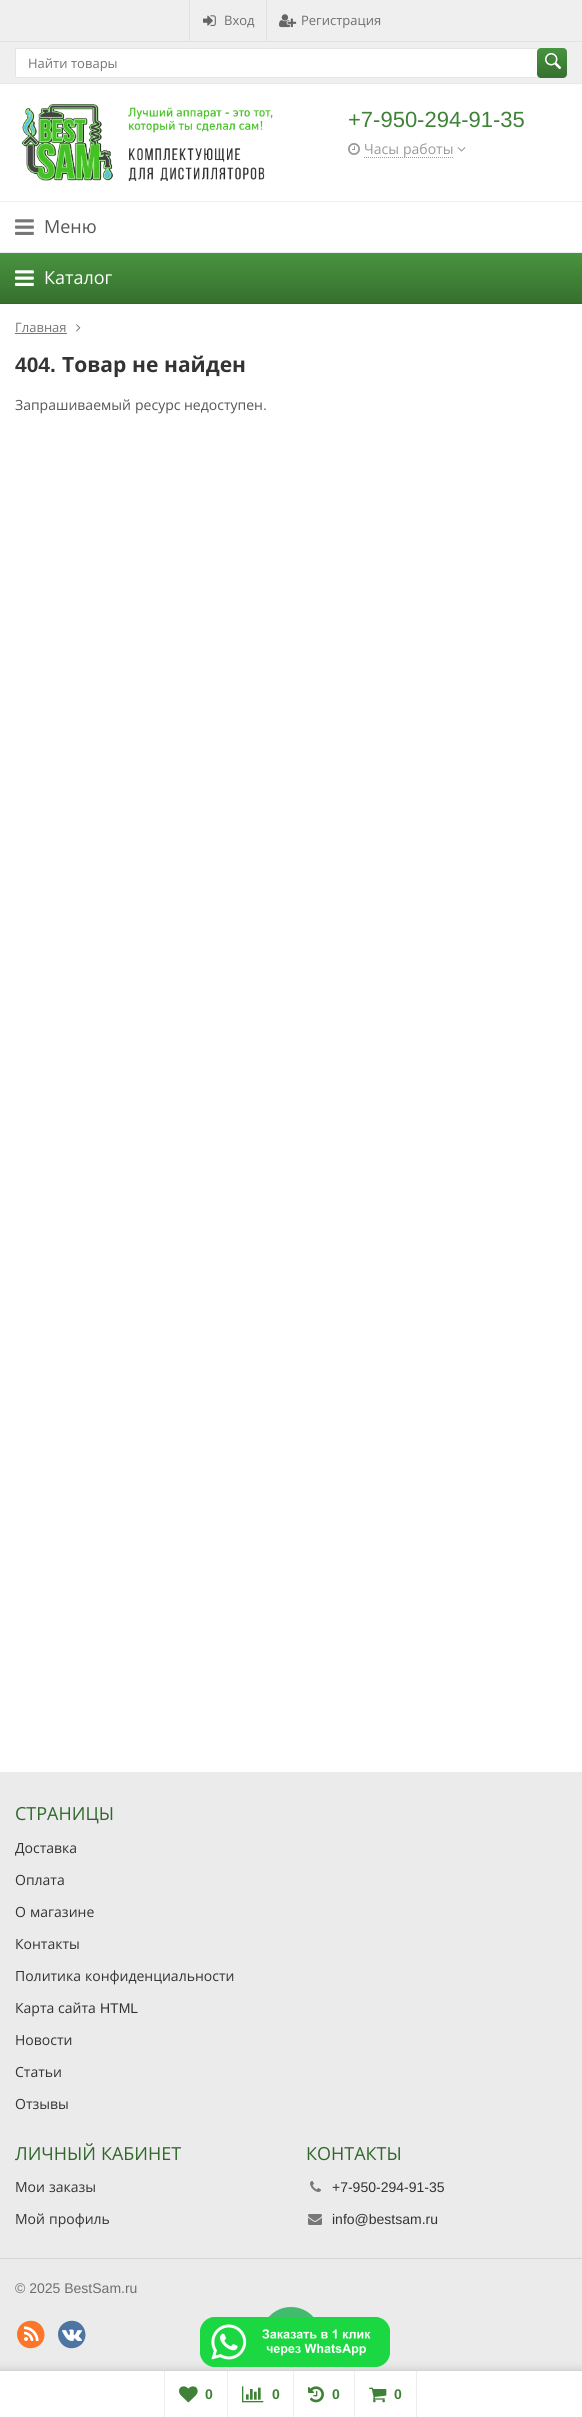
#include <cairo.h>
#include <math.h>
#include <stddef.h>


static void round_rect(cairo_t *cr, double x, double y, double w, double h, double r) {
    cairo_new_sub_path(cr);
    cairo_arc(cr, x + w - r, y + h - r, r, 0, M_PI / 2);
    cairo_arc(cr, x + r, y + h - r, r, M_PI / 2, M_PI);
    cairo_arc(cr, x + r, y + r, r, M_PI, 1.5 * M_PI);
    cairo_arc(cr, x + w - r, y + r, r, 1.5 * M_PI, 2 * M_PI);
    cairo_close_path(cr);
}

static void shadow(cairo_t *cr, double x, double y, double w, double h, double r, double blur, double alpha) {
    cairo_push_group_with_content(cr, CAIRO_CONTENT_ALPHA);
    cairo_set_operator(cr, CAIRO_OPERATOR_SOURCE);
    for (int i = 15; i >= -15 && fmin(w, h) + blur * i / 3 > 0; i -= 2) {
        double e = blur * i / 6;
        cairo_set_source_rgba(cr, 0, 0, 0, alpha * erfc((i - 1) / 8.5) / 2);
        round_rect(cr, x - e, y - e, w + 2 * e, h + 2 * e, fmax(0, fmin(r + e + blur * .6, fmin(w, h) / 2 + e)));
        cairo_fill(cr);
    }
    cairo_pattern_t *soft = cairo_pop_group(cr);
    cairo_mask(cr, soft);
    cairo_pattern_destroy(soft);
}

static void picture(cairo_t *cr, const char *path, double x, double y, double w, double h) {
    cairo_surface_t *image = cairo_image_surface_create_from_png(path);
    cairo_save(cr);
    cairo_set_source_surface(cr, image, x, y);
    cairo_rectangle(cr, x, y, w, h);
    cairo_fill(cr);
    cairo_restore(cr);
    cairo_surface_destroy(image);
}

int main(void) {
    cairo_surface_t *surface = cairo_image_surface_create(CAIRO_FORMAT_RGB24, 582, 2417);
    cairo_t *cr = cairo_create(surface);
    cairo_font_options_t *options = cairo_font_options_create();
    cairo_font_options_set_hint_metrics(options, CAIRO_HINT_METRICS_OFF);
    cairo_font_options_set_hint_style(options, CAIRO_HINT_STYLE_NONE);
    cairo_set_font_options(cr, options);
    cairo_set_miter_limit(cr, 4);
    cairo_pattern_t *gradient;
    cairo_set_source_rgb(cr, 1, 1, 1);
    cairo_paint(cr);
    cairo_set_source_rgb(cr, 0.941, 0.937, 0.941);
    cairo_rectangle(cr, 0, 0, 582, 84);
    cairo_fill(cr);
    cairo_set_source_rgb(cr, 0.902, 0.91, 0.918);
    round_rect(cr, 0, 83, 582, 1, 0.5);
    cairo_fill(cr);
    cairo_set_source_rgb(cr, 0.886, 0.882, 0.886);
    cairo_rectangle(cr, 189, 0, 1, 41);
    cairo_fill(cr);
    picture(cr, "img1.png", 203, 15, 13, 11);
    cairo_select_font_face(cr, "Open Sans", CAIRO_FONT_SLANT_NORMAL, CAIRO_FONT_WEIGHT_NORMAL);
    cairo_set_font_size(cr, 13);
    cairo_set_source_rgb(cr, 0.435, 0.435, 0.435);
    cairo_move_to(cr, 224, 25);
    cairo_show_text(cr, "Вход");
    cairo_set_source_rgb(cr, 0.886, 0.882, 0.886);
    cairo_rectangle(cr, 266, 0, 1, 41);
    cairo_fill(cr);
    picture(cr, "img2.png", 279, 14, 18, 14);
    cairo_set_source_rgb(cr, 0.435, 0.435, 0.435);
    cairo_move_to(cr, 301, 25);
    cairo_show_text(cr, "Регистрация");
    cairo_set_source_rgb(cr, 0.886, 0.882, 0.886);
    cairo_rectangle(cr, 0, 41, 582, 1);
    cairo_fill(cr);
    cairo_set_source_rgb(cr, 1, 1, 1);
    round_rect(cr, 15.5, 48.5, 551, 29, 1.5);
    cairo_fill_preserve(cr);
    cairo_set_source_rgb(cr, 0.894, 0.894, 0.894);
    cairo_set_line_width(cr, 1);
    cairo_stroke(cr);
    cairo_set_source_rgb(cr, 0.459, 0.459, 0.459);
    cairo_move_to(cr, 28, 68);
    cairo_show_text(cr, "Найти");
    cairo_move_to(cr, 71, 68);
    cairo_show_text(cr, "товары");
    gradient = cairo_pattern_create_linear(552, 48, 552, 78);
    cairo_pattern_add_color_stop_rgba(gradient, 0, 0.282, 0.58, 0.247, 1);
    cairo_pattern_add_color_stop_rgba(gradient, 1, 0.212, 0.439, 0.184, 1);
    cairo_set_source(cr, gradient);
    cairo_pattern_destroy(gradient);
    round_rect(cr, 537, 48, 30, 30, 4);
    cairo_fill(cr);
    picture(cr, "img3.png", 545, 53, 16, 16);
    picture(cr, "img4.png", 21, 104, 252, 77);
    cairo_select_font_face(cr, "Liberation Sans", CAIRO_FONT_SLANT_NORMAL, CAIRO_FONT_WEIGHT_NORMAL);
    cairo_set_font_size(cr, 22);
    cairo_set_source_rgb(cr, 0.247, 0.51, 0.216);
    cairo_move_to(cr, 348, 127);
    cairo_show_text(cr, "+7-950-294-91-35");
    picture(cr, "img5.png", 348, 143, 12, 12);
    cairo_select_font_face(cr, "Open Sans", CAIRO_FONT_SLANT_NORMAL, CAIRO_FONT_WEIGHT_NORMAL);
    cairo_set_font_size(cr, 14);
    cairo_set_source_rgb(cr, 0.6, 0.6, 0.6);
    cairo_move_to(cr, 364, 154);
    cairo_show_text(cr, "Часы");
    cairo_new_path(cr);
    cairo_move_to(cr, 364, 157.5);
    cairo_line_to(cr, 453, 157.5);
    cairo_set_dash(cr, (double[]){1, 1}, 2, 0);
    cairo_stroke(cr);
    cairo_move_to(cr, 403, 154);
    cairo_show_text(cr, "работы");
    picture(cr, "img6.png", 457, 147, 9, 5);
    cairo_set_source_rgb(cr, 0.933, 0.937, 0.941);
    cairo_rectangle(cr, 0, 201, 582, 1);
    cairo_fill(cr);
    cairo_rectangle(cr, 0, 252, 582, 1);
    cairo_fill(cr);
    picture(cr, "img7.png", 15, 219, 19, 16);
    cairo_set_font_size(cr, 18);
    cairo_set_source_rgb(cr, 0.333, 0.333, 0.333);
    cairo_move_to(cr, 44, 233);
    cairo_show_text(cr, "Меню");
    gradient = cairo_pattern_create_linear(291, 253, 291, 303);
    cairo_pattern_add_color_stop_rgba(gradient, 0, 0.282, 0.58, 0.247, 1);
    cairo_pattern_add_color_stop_rgba(gradient, 1, 0.212, 0.439, 0.184, 1);
    cairo_set_source(cr, gradient);
    cairo_pattern_destroy(gradient);
    cairo_rectangle(cr, 0, 253, 582, 50);
    cairo_fill(cr);
    cairo_set_source_rgb(cr, 0.196, 0.408, 0.173);
    cairo_rectangle(cr, 0, 303, 582, 1);
    cairo_fill(cr);
    picture(cr, "img8.png", 15, 270, 19, 16);
    cairo_set_source_rgb(cr, 1, 1, 1);
    cairo_move_to(cr, 44, 284);
    cairo_show_text(cr, "Каталог");
    cairo_set_font_size(cr, 13);
    cairo_set_source_rgb(cr, 0.459, 0.459, 0.459);
    cairo_move_to(cr, 15, 332);
    cairo_show_text(cr, "Главная");
    cairo_set_source_rgb(cr, 0.467, 0.467, 0.467);
    cairo_rectangle(cr, 15, 333, 52, 1);
    cairo_fill(cr);
    picture(cr, "img9.png", 76, 324, 5, 8);
    cairo_select_font_face(cr, "Liberation Sans", CAIRO_FONT_SLANT_NORMAL, CAIRO_FONT_WEIGHT_BOLD);
    cairo_set_font_size(cr, 21);
    cairo_set_source_rgb(cr, 0.2, 0.2, 0.2);
    cairo_move_to(cr, 15, 372);
    cairo_show_text(cr, "404.");
    cairo_select_font_face(cr, "Open Sans", CAIRO_FONT_SLANT_NORMAL, CAIRO_FONT_WEIGHT_BOLD);
    cairo_move_to(cr, 62, 372);
    cairo_show_text(cr, "Товар");
    cairo_move_to(cr, 132, 372);
    cairo_show_text(cr, "не");
    cairo_move_to(cr, 164, 372);
    cairo_show_text(cr, "найден");
    cairo_select_font_face(cr, "Open Sans", CAIRO_FONT_SLANT_NORMAL, CAIRO_FONT_WEIGHT_NORMAL);
    cairo_set_font_size(cr, 14);
    cairo_set_source_rgb(cr, 0.333, 0.333, 0.333);
    cairo_move_to(cr, 15, 410);
    cairo_show_text(cr, "Запрашиваемый");
    cairo_move_to(cr, 135, 410);
    cairo_show_text(cr, "ресурс");
    cairo_move_to(cr, 184, 410);
    cairo_show_text(cr, "недоступен");
    cairo_select_font_face(cr, "Liberation Sans", CAIRO_FONT_SLANT_NORMAL, CAIRO_FONT_WEIGHT_NORMAL);
    cairo_move_to(cr, 263, 410);
    cairo_show_text(cr, ".");
    cairo_set_source_rgb(cr, 0.918, 0.918, 0.918);
    cairo_rectangle(cr, 0, 1772, 582, 599);
    cairo_fill(cr);
    cairo_select_font_face(cr, "Open Sans", CAIRO_FONT_SLANT_NORMAL, CAIRO_FONT_WEIGHT_NORMAL);
    cairo_set_font_size(cr, 18);
    cairo_set_source_rgb(cr, 0.196, 0.404, 0.173);
    cairo_move_to(cr, 15, 1820);
    cairo_show_text(cr, "СТРАНИЦЫ");
    cairo_set_font_size(cr, 14);
    cairo_set_source_rgb(cr, 0.2, 0.2, 0.2);
    cairo_move_to(cr, 15, 1853);
    cairo_show_text(cr, "Доставка");
    cairo_move_to(cr, 15, 1885);
    cairo_show_text(cr, "Оплата");
    cairo_move_to(cr, 15, 1917);
    cairo_show_text(cr, "О");
    cairo_move_to(cr, 30, 1917);
    cairo_show_text(cr, "магазине");
    cairo_move_to(cr, 15, 1949);
    cairo_show_text(cr, "Контакты");
    cairo_move_to(cr, 15, 1981);
    cairo_show_text(cr, "Политика");
    cairo_move_to(cr, 85, 1981);
    cairo_show_text(cr, "конфиденциальности");
    cairo_move_to(cr, 15, 2013);
    cairo_show_text(cr, "Карта");
    cairo_move_to(cr, 58, 2013);
    cairo_show_text(cr, "сайта");
    cairo_select_font_face(cr, "Liberation Sans", CAIRO_FONT_SLANT_NORMAL, CAIRO_FONT_WEIGHT_NORMAL);
    cairo_move_to(cr, 100, 2013);
    cairo_show_text(cr, "HTML");
    cairo_select_font_face(cr, "Open Sans", CAIRO_FONT_SLANT_NORMAL, CAIRO_FONT_WEIGHT_NORMAL);
    cairo_move_to(cr, 15, 2045);
    cairo_show_text(cr, "Новости");
    cairo_move_to(cr, 15, 2077);
    cairo_show_text(cr, "Статьи");
    cairo_move_to(cr, 15, 2109);
    cairo_show_text(cr, "Отзывы");
    cairo_set_font_size(cr, 18);
    cairo_set_source_rgb(cr, 0.196, 0.404, 0.173);
    cairo_move_to(cr, 15, 2160);
    cairo_show_text(cr, "ЛИЧНЫЙ");
    cairo_move_to(cr, 101, 2160);
    cairo_show_text(cr, "КАБИНЕТ");
    cairo_set_font_size(cr, 14);
    cairo_set_source_rgb(cr, 0.2, 0.2, 0.2);
    cairo_move_to(cr, 15, 2192);
    cairo_show_text(cr, "Мои");
    cairo_move_to(cr, 49, 2192);
    cairo_show_text(cr, "заказы");
    cairo_move_to(cr, 15, 2224);
    cairo_show_text(cr, "Мой");
    cairo_move_to(cr, 49, 2224);
    cairo_show_text(cr, "профиль");
    cairo_set_font_size(cr, 18);
    cairo_set_source_rgb(cr, 0.196, 0.404, 0.173);
    cairo_move_to(cr, 306, 2160);
    cairo_show_text(cr, "КОНТАКТЫ");
    picture(cr, "img10.png", 310, 2181, 11, 11);
    cairo_select_font_face(cr, "Liberation Sans", CAIRO_FONT_SLANT_NORMAL, CAIRO_FONT_WEIGHT_NORMAL);
    cairo_set_font_size(cr, 14);
    cairo_set_source_rgb(cr, 0.2, 0.2, 0.2);
    cairo_move_to(cr, 332, 2192);
    cairo_show_text(cr, "+7-950-294-91-35");
    picture(cr, "img11.png", 308, 2214, 14, 11);
    cairo_move_to(cr, 332, 2224);
    cairo_show_text(cr, "info@bestsam.ru");
    cairo_set_source_rgb(cr, 0.835, 0.835, 0.835);
    cairo_rectangle(cr, 0, 2258, 582, 1);
    cairo_fill(cr);
    cairo_set_source_rgb(cr, 0.435, 0.435, 0.435);
    cairo_move_to(cr, 15, 2293);
    cairo_show_text(cr, "© 2025 BestSam.ru");
    cairo_set_source_rgb(cr, 0.984, 0.463, 0.161);
    cairo_new_path(cr);
    cairo_move_to(cr, 42.5, 2327.5);
    cairo_curve_to(cr, 44, 2330, 44.5, 2333, 44.5, 2335.5);
    cairo_curve_to(cr, 43.5, 2349, 25.5, 2353, 19, 2341.5);
    cairo_curve_to(cr, 17.5, 2339, 17, 2336.5, 17, 2333.5);
    cairo_curve_to(cr, 18, 2320, 36, 2316, 42.5, 2327.5);
    cairo_close_path(cr);
    cairo_fill(cr);
    picture(cr, "img12.png", 24, 2326, 15, 15);
    cairo_set_source_rgb(cr, 0.302, 0.459, 0.643);
    cairo_new_path(cr);
    cairo_move_to(cr, 83.5, 2327.5);
    cairo_curve_to(cr, 85, 2330, 85.5, 2333, 85.5, 2335.5);
    cairo_curve_to(cr, 84.5, 2349, 66.5, 2353, 60, 2341.5);
    cairo_curve_to(cr, 58.5, 2339, 58, 2336.5, 58, 2333.5);
    cairo_curve_to(cr, 59, 2320, 77, 2316, 83.5, 2327.5);
    cairo_close_path(cr);
    cairo_fill(cr);
    picture(cr, "img13.png", 62, 2329, 20, 12);
    cairo_set_source_rgb(cr, 0.267, 0.733, 0.431);
    cairo_arc(cr, 291, 2337, 30, 0, 2 * M_PI);
    cairo_fill(cr);
    cairo_set_source_rgba(cr, 0.267, 0.733, 0.431, 0.1);
    cairo_arc(cr, 291, 2337, 30, 0, 2 * M_PI);
    cairo_fill(cr);
    cairo_set_source_rgb(cr, 0, 0, 0);
    shadow(cr, 0, 2371, 582, 46, 0, 5, 0.2);
    picture(cr, "img14.png", 200, 2317, 190, 50);
    cairo_set_source_rgb(cr, 1, 1, 1);
    cairo_rectangle(cr, 0, 2371, 582, 46);
    cairo_fill(cr);
    cairo_set_source_rgb(cr, 0.933, 0.933, 0.933);
    cairo_rectangle(cr, 164, 2371, 1, 46);
    cairo_fill(cr);
    picture(cr, "img15.png", 179, 2386, 19, 17);
    cairo_select_font_face(cr, "Liberation Sans", CAIRO_FONT_SLANT_NORMAL, CAIRO_FONT_WEIGHT_BOLD);
    cairo_set_source_rgb(cr, 0.247, 0.51, 0.216);
    cairo_move_to(cr, 205, 2399);
    cairo_show_text(cr, "0");
    cairo_set_source_rgb(cr, 0.933, 0.933, 0.933);
    cairo_rectangle(cr, 227, 2371, 1, 46);
    cairo_fill(cr);
    picture(cr, "img16.png", 242, 2386, 22, 17);
    cairo_set_source_rgb(cr, 0.247, 0.51, 0.216);
    cairo_move_to(cr, 272, 2399);
    cairo_show_text(cr, "0");
    cairo_set_source_rgb(cr, 0.933, 0.933, 0.933);
    cairo_rectangle(cr, 293, 2371, 1, 46);
    cairo_fill(cr);
    picture(cr, "img17.png", 308, 2386, 16, 17);
    cairo_set_source_rgb(cr, 0.247, 0.51, 0.216);
    cairo_move_to(cr, 332, 2399);
    cairo_show_text(cr, "0");
    cairo_set_source_rgb(cr, 0.933, 0.933, 0.933);
    cairo_rectangle(cr, 416, 2371, 1, 46);
    cairo_fill(cr);
    cairo_rectangle(cr, 354, 2371, 1, 46);
    cairo_fill(cr);
    picture(cr, "img18.png", 369, 2387, 18, 16);
    cairo_set_source_rgb(cr, 0.247, 0.51, 0.216);
    cairo_move_to(cr, 394, 2399);
    cairo_show_text(cr, "0");
    cairo_surface_write_to_png(surface, "page.png");
    cairo_font_options_destroy(options);
    cairo_destroy(cr);
    cairo_surface_destroy(surface);
    return 0;
}
